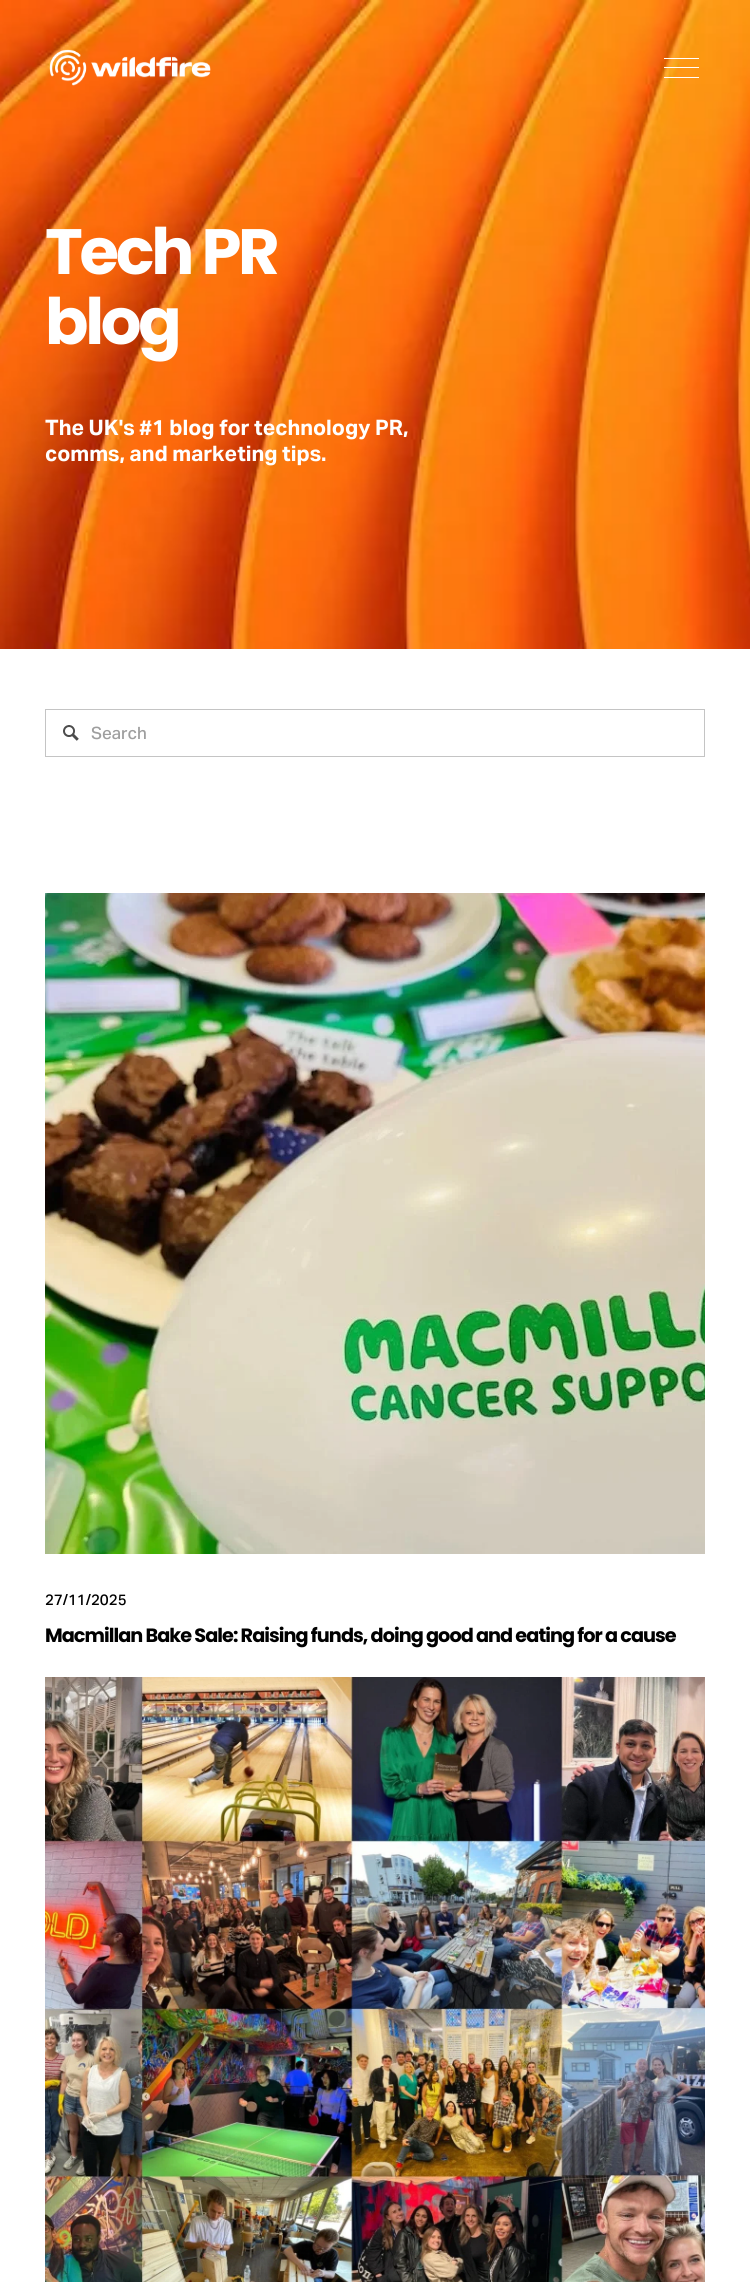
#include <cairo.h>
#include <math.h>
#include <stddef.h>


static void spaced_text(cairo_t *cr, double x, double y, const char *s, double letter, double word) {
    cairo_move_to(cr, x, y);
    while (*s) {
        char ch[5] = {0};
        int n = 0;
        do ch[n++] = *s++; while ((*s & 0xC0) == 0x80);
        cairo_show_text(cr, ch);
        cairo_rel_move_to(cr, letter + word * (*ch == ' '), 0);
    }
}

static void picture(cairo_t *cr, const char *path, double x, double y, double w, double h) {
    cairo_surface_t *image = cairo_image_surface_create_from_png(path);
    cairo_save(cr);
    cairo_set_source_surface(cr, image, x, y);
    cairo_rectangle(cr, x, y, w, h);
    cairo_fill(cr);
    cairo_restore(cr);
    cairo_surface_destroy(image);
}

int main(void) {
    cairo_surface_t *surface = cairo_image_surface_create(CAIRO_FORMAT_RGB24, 750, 2282);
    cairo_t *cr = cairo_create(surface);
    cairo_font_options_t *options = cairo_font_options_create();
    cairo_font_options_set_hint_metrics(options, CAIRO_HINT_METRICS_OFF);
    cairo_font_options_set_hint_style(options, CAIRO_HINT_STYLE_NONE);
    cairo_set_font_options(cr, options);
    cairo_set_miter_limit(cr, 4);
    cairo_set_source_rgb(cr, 1, 1, 1);
    cairo_paint(cr);
    picture(cr, "img2.png", 0, 0, 750, 649);
    picture(cr, "img1.png", 49, 49, 162, 37);
    cairo_set_source_rgb(cr, 1, 1, 1);
    cairo_rectangle(cr, 664, 58, 35, 1);
    cairo_fill(cr);
    cairo_rectangle(cr, 664, 67, 35, 1);
    cairo_fill(cr);
    cairo_rectangle(cr, 664, 77, 35, 1);
    cairo_fill(cr);
    cairo_select_font_face(cr, "Poppins", CAIRO_FONT_SLANT_NORMAL, CAIRO_FONT_WEIGHT_BOLD);
    cairo_set_font_size(cr, 64);
    spaced_text(cr, 45, 274, "Tech PR", -3.25, 0);
    spaced_text(cr, 45, 344, "blog", -3.25, 0);
    cairo_select_font_face(cr, "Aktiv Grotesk", CAIRO_FONT_SLANT_NORMAL, CAIRO_FONT_WEIGHT_BOLD);
    cairo_set_font_size(cr, 21.4);
    cairo_move_to(cr, 45, 435);
    cairo_show_text(cr, "The UK's #1 blog for technology PR,");
    cairo_move_to(cr, 45, 461);
    cairo_show_text(cr, "comms, and marketing tips.");
    picture(cr, "img3.png", 63, 725, 16, 16);
    cairo_rectangle(cr, 45.5, 709.5, 659, 47);
    cairo_set_source_rgb(cr, 0.769, 0.769, 0.769);
    cairo_set_line_width(cr, 1);
    cairo_stroke(cr);
    cairo_select_font_face(cr, "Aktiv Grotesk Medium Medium", CAIRO_FONT_SLANT_NORMAL, CAIRO_FONT_WEIGHT_NORMAL);
    cairo_set_font_size(cr, 17);
    cairo_set_source_rgb(cr, 0.62, 0.62, 0.62);
    cairo_move_to(cr, 91, 739);
    cairo_show_text(cr, "Search");
    picture(cr, "img4.png", 45, 893, 660, 661);
    cairo_set_font_size(cr, 15);
    cairo_set_source_rgb(cr, 0, 0, 0);
    cairo_move_to(cr, 45, 1605);
    cairo_show_text(cr, "27/11/2025");
    cairo_select_font_face(cr, "Poppins", CAIRO_FONT_SLANT_NORMAL, CAIRO_FONT_WEIGHT_BOLD);
    cairo_set_font_size(cr, 19.25);
    spaced_text(cr, 45, 1642, "Macmillan Bake Sale: Raising funds, doing good and eating for a cause", -0.95, 0);
    picture(cr, "img5.png", 45, 1677, 660, 605);
    cairo_surface_write_to_png(surface, "page.png");
    cairo_font_options_destroy(options);
    cairo_destroy(cr);
    cairo_surface_destroy(surface);
    return 0;
}
